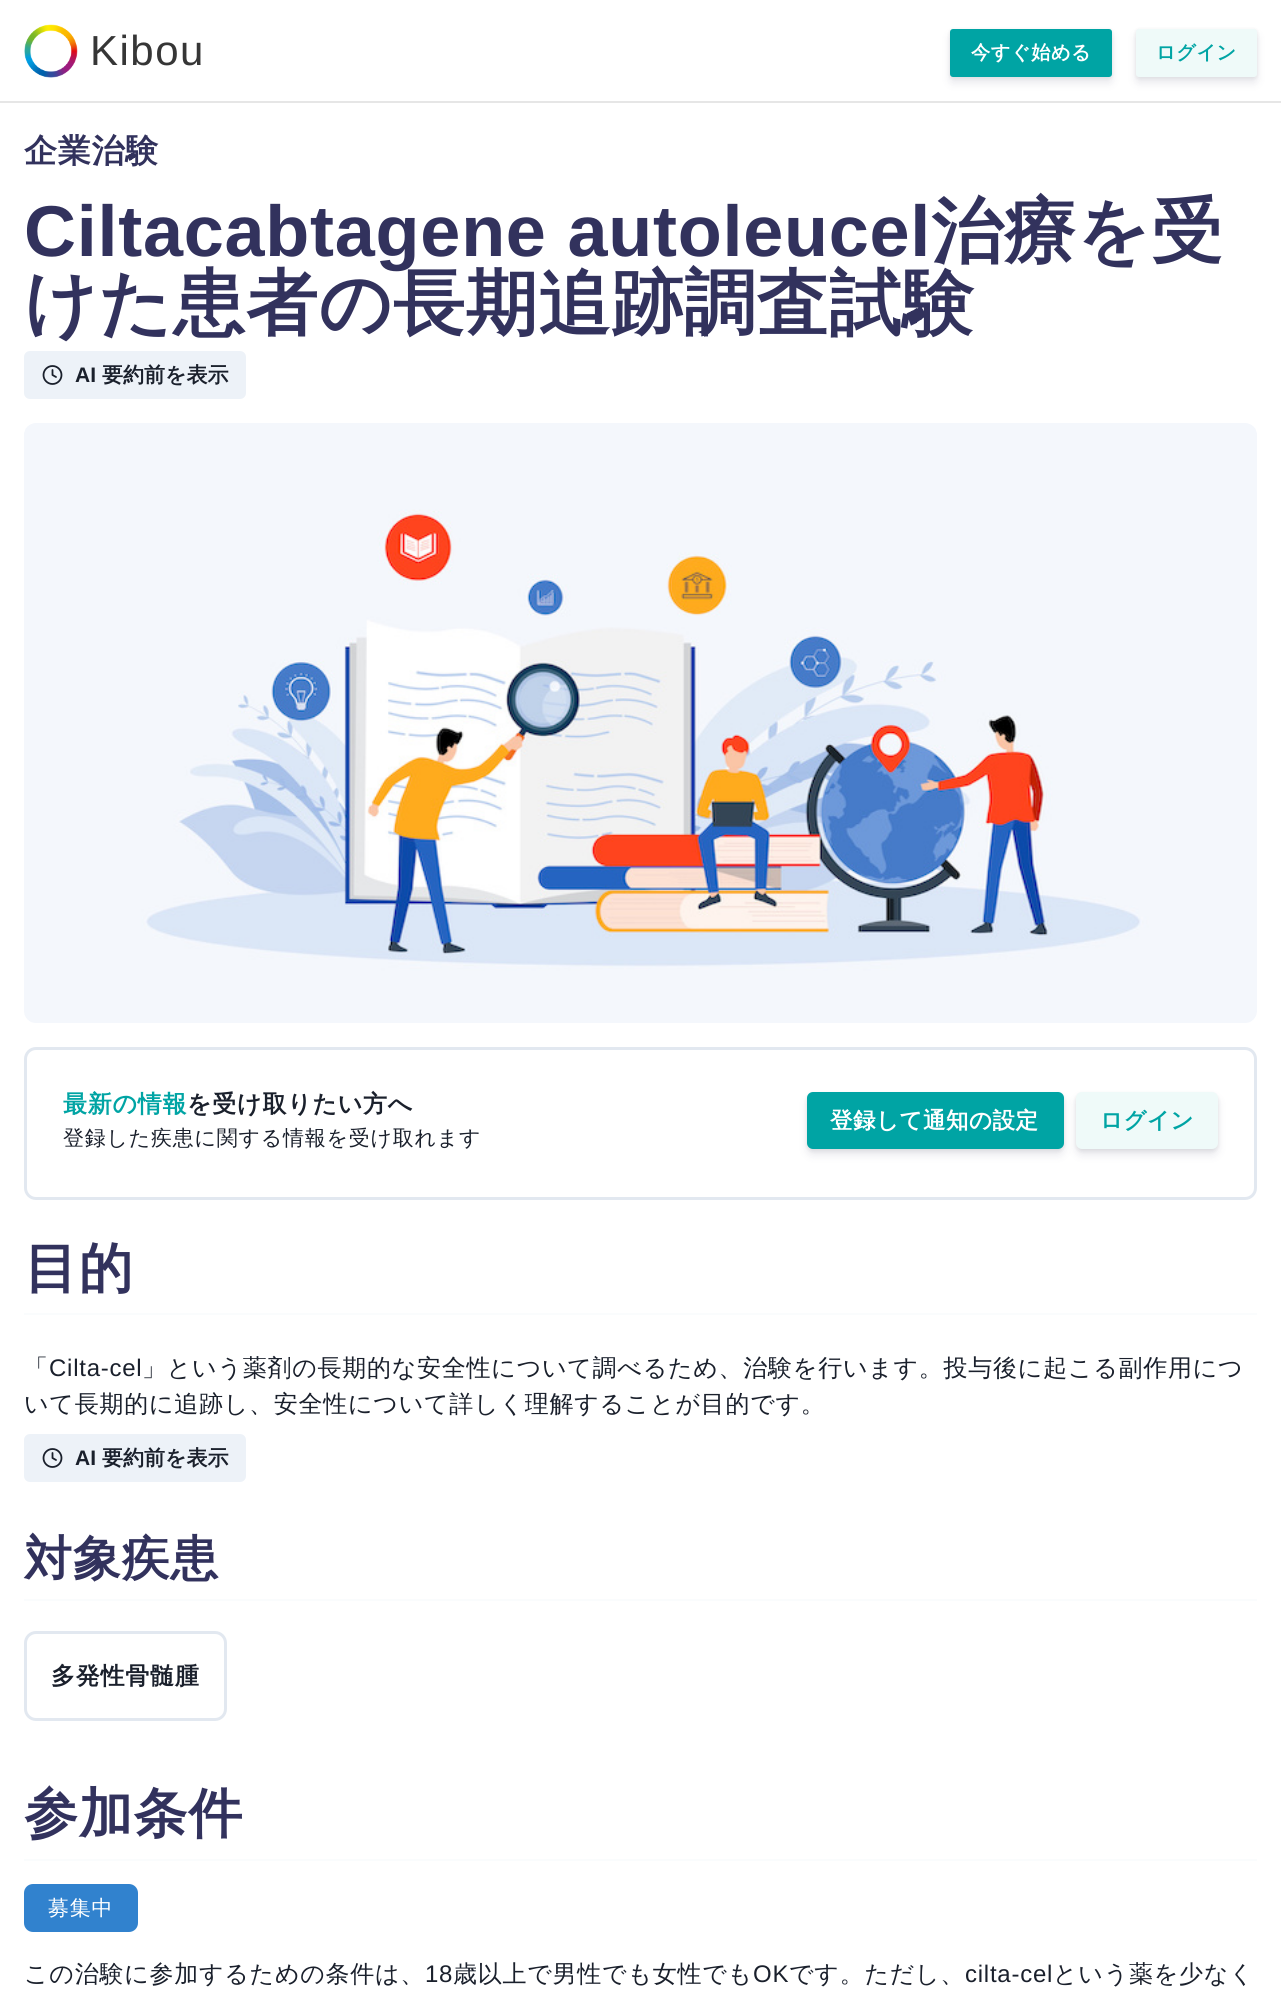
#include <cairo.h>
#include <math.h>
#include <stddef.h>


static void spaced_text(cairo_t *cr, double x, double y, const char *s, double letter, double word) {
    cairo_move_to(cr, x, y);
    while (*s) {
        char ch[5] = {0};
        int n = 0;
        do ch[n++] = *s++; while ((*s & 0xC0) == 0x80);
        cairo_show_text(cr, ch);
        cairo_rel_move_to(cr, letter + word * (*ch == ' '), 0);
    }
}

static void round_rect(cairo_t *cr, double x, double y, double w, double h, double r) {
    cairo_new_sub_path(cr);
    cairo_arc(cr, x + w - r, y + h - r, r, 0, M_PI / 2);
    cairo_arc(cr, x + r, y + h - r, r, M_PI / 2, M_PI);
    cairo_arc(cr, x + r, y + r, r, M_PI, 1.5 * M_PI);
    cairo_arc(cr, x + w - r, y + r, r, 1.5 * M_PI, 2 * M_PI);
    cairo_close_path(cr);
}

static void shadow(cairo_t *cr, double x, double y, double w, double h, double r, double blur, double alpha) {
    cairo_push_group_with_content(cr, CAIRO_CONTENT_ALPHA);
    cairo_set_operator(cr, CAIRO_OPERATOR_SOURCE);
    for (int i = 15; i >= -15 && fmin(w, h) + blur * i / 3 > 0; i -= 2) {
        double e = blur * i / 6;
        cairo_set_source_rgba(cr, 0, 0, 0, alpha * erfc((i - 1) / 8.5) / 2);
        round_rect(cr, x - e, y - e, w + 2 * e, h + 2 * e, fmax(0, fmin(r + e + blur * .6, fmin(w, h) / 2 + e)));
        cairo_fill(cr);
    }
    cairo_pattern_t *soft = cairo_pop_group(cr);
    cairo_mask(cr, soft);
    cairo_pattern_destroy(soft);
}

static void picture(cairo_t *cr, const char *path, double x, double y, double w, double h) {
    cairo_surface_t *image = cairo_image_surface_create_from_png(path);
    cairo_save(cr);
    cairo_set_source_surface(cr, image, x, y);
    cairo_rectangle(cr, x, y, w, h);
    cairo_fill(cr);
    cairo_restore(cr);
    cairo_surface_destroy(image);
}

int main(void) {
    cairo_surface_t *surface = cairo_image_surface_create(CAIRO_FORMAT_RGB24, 1281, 1996);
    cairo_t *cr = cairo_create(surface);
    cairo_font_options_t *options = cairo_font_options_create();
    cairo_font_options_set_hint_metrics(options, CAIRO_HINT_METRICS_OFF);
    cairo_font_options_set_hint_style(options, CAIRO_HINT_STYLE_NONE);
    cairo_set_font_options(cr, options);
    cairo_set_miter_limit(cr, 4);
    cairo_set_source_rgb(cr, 1, 1, 1);
    cairo_paint(cr);
    cairo_set_source_rgb(cr, 0.902, 0.902, 0.902);
    cairo_rectangle(cr, 0, 101, 1281, 2);
    cairo_fill(cr);
    picture(cr, "img1.png", 24, 24, 54, 54);
    cairo_select_font_face(cr, "Liberation Sans", CAIRO_FONT_SLANT_NORMAL, CAIRO_FONT_WEIGHT_NORMAL);
    cairo_set_font_size(cr, 42);
    cairo_set_source_rgb(cr, 0.212, 0.212, 0.212);
    spaced_text(cr, 90, 65, "Kibou", 1.5, 0);
    cairo_set_source_rgb(cr, 0, 0, 0);
    shadow(cr, 950, 30, 162, 48, 3, 2, 0.08);
    cairo_set_source_rgb(cr, 0.196, 0.196, 0.365);
    shadow(cr, 950, 35, 162, 48, 3, 4.5, 0.11);
    cairo_set_source_rgb(cr, 0, 0.643, 0.643);
    round_rect(cr, 950, 29, 162, 48, 3);
    cairo_fill(cr);
    cairo_select_font_face(cr, "WenQuanYi Zen Hei", CAIRO_FONT_SLANT_NORMAL, CAIRO_FONT_WEIGHT_BOLD);
    cairo_set_font_size(cr, 19.25);
    cairo_set_source_rgb(cr, 1, 1, 1);
    spaced_text(cr, 971, 59, "今すぐ始める", 0.5, 0);
    cairo_set_source_rgb(cr, 0, 0, 0);
    shadow(cr, 1136, 30, 121, 48, 3, 2, 0.08);
    cairo_set_source_rgb(cr, 0.196, 0.196, 0.365);
    shadow(cr, 1136, 35, 121, 48, 3, 4.5, 0.11);
    cairo_set_source_rgb(cr, 0.937, 0.98, 0.973);
    round_rect(cr, 1136, 29, 121, 48, 3);
    cairo_fill(cr);
    cairo_set_source_rgb(cr, 0, 0.643, 0.643);
    spaced_text(cr, 1156, 59, "ログイン", 0.5, 0);
    cairo_set_font_size(cr, 33);
    cairo_set_source_rgb(cr, 0.196, 0.196, 0.365);
    spaced_text(cr, 24, 162, "企業治験", 0.75, 0);
    cairo_select_font_face(cr, "Liberation Sans", CAIRO_FONT_SLANT_NORMAL, CAIRO_FONT_WEIGHT_BOLD);
    cairo_set_font_size(cr, 72);
    spaced_text(cr, 24, 256, "Ciltacabtagene autoleucel", 0.75, 0);
    cairo_select_font_face(cr, "WenQuanYi Zen Hei", CAIRO_FONT_SLANT_NORMAL, CAIRO_FONT_WEIGHT_BOLD);
    spaced_text(cr, 931, 256, "治療を受", 0.75, 0);
    spaced_text(cr, 24, 328, "けた患者の長期追跡調査試験", 0.75, 0);
    cairo_set_source_rgb(cr, 0.929, 0.949, 0.969);
    round_rect(cr, 24, 351, 222, 48, 6);
    cairo_fill(cr);
    cairo_arc(cr, 52.5, 375, 9, 0, 2 * M_PI);
    cairo_set_source_rgb(cr, 0.102, 0.125, 0.173);
    cairo_set_line_width(cr, 1.8);
    cairo_stroke(cr);
    cairo_new_path(cr);
    cairo_move_to(cr, 52.5, 370);
    cairo_line_to(cr, 52.5, 375);
    cairo_line_to(cr, 56, 377);
    cairo_set_line_cap(cr, CAIRO_LINE_CAP_ROUND);
    cairo_set_line_join(cr, CAIRO_LINE_JOIN_ROUND);
    cairo_stroke(cr);
    cairo_select_font_face(cr, "Liberation Sans", CAIRO_FONT_SLANT_NORMAL, CAIRO_FONT_WEIGHT_BOLD);
    cairo_set_font_size(cr, 21);
    cairo_move_to(cr, 75, 382);
    cairo_show_text(cr, "AI");
    cairo_select_font_face(cr, "WenQuanYi Zen Hei", CAIRO_FONT_SLANT_NORMAL, CAIRO_FONT_WEIGHT_BOLD);
    cairo_move_to(cr, 102, 382);
    cairo_show_text(cr, "要約前を表示");
    picture(cr, "img2.png", 24, 423, 1233, 600);
    round_rect(cr, 25.5, 1048.5, 1230, 150, 10.5);
    cairo_set_source_rgb(cr, 0.886, 0.91, 0.941);
    cairo_set_line_width(cr, 3);
    cairo_set_line_cap(cr, CAIRO_LINE_CAP_BUTT);
    cairo_set_line_join(cr, CAIRO_LINE_JOIN_MITER);
    cairo_stroke(cr);
    cairo_set_font_size(cr, 24);
    cairo_set_source_rgb(cr, 0, 0.643, 0.643);
    spaced_text(cr, 63, 1112, "最新の情報", 0.75, 0);
    cairo_set_source_rgb(cr, 0.102, 0.125, 0.173);
    spaced_text(cr, 187, 1112, "を受け取りたい方へ", 0.75, 0);
    cairo_select_font_face(cr, "WenQuanYi Zen Hei Medium", CAIRO_FONT_SLANT_NORMAL, CAIRO_FONT_WEIGHT_NORMAL);
    cairo_set_font_size(cr, 21);
    spaced_text(cr, 63, 1145, "登録した疾患に関する情報を受け取れます", 0.75, 0);
    cairo_set_source_rgb(cr, 0, 0, 0);
    shadow(cr, 807, 1094, 257, 57, 6, 2, 0.08);
    cairo_set_source_rgb(cr, 0.196, 0.196, 0.365);
    shadow(cr, 807, 1098, 257, 57, 6, 4.5, 0.11);
    cairo_set_source_rgb(cr, 0, 0.643, 0.643);
    round_rect(cr, 807, 1092, 257, 57, 6);
    cairo_fill(cr);
    cairo_select_font_face(cr, "WenQuanYi Zen Hei", CAIRO_FONT_SLANT_NORMAL, CAIRO_FONT_WEIGHT_BOLD);
    cairo_set_font_size(cr, 22.5);
    cairo_set_source_rgb(cr, 1, 1, 1);
    spaced_text(cr, 830, 1128, "登録して通知の設定", 0.5, 0);
    cairo_set_source_rgb(cr, 0, 0, 0);
    shadow(cr, 1076, 1094, 142, 57, 6, 2, 0.08);
    cairo_set_source_rgb(cr, 0.196, 0.196, 0.365);
    shadow(cr, 1076, 1098, 142, 57, 6, 4.5, 0.11);
    cairo_set_source_rgb(cr, 0.937, 0.98, 0.973);
    round_rect(cr, 1076, 1092, 142, 57, 6);
    cairo_fill(cr);
    cairo_set_source_rgb(cr, 0, 0.643, 0.643);
    spaced_text(cr, 1100, 1128, "ログイン", 0.5, 0);
    cairo_set_font_size(cr, 54);
    cairo_set_source_rgb(cr, 0.196, 0.196, 0.365);
    spaced_text(cr, 24, 1287, "目的", 0.75, 0);
    cairo_set_source_rgb(cr, 0.98, 0.988, 0.992);
    cairo_rectangle(cr, 24, 1313, 1233, 2);
    cairo_fill(cr);
    cairo_select_font_face(cr, "WenQuanYi Zen Hei Medium", CAIRO_FONT_SLANT_NORMAL, CAIRO_FONT_WEIGHT_NORMAL);
    cairo_set_font_size(cr, 24);
    cairo_set_source_rgb(cr, 0.102, 0.125, 0.173);
    spaced_text(cr, 24, 1376, "「", 0.75, 0);
    cairo_select_font_face(cr, "Liberation Sans", CAIRO_FONT_SLANT_NORMAL, CAIRO_FONT_WEIGHT_NORMAL);
    spaced_text(cr, 49, 1376, "Cilta-cel", 0.75, 0);
    cairo_select_font_face(cr, "WenQuanYi Zen Hei Medium", CAIRO_FONT_SLANT_NORMAL, CAIRO_FONT_WEIGHT_NORMAL);
    spaced_text(cr, 142, 1376, "」という薬剤の長期的な安全性について調べるため、治験を行います。投与後に起こる副作用につ", 0.75, 0);
    spaced_text(cr, 24, 1412, "いて長期的に追跡し、安全性について詳しく理解することが目的です。", 0.75, 0);
    cairo_set_source_rgb(cr, 0.929, 0.949, 0.969);
    round_rect(cr, 24, 1434, 222, 48, 6);
    cairo_fill(cr);
    cairo_arc(cr, 52.5, 1458, 9, 0, 2 * M_PI);
    cairo_set_source_rgb(cr, 0.102, 0.125, 0.173);
    cairo_set_line_width(cr, 1.8);
    cairo_stroke(cr);
    cairo_new_path(cr);
    cairo_move_to(cr, 52.5, 1453);
    cairo_line_to(cr, 52.5, 1458);
    cairo_line_to(cr, 56, 1460);
    cairo_set_line_cap(cr, CAIRO_LINE_CAP_ROUND);
    cairo_set_line_join(cr, CAIRO_LINE_JOIN_ROUND);
    cairo_stroke(cr);
    cairo_select_font_face(cr, "Liberation Sans", CAIRO_FONT_SLANT_NORMAL, CAIRO_FONT_WEIGHT_BOLD);
    cairo_set_font_size(cr, 21);
    cairo_move_to(cr, 75, 1465);
    cairo_show_text(cr, "AI");
    cairo_select_font_face(cr, "WenQuanYi Zen Hei", CAIRO_FONT_SLANT_NORMAL, CAIRO_FONT_WEIGHT_BOLD);
    cairo_move_to(cr, 102, 1465);
    cairo_show_text(cr, "要約前を表示");
    cairo_set_font_size(cr, 48);
    cairo_set_source_rgb(cr, 0.196, 0.196, 0.365);
    spaced_text(cr, 24, 1575, "対象疾患", 0.75, 0);
    cairo_set_source_rgb(cr, 0.98, 0.988, 0.992);
    cairo_rectangle(cr, 24, 1599, 1233, 2);
    cairo_fill(cr);
    round_rect(cr, 25.5, 1632.5, 200, 87, 10.5);
    cairo_set_source_rgb(cr, 0.886, 0.91, 0.941);
    cairo_set_line_width(cr, 3);
    cairo_set_line_cap(cr, CAIRO_LINE_CAP_BUTT);
    cairo_set_line_join(cr, CAIRO_LINE_JOIN_MITER);
    cairo_stroke(cr);
    cairo_set_font_size(cr, 24);
    cairo_set_source_rgb(cr, 0.102, 0.125, 0.173);
    spaced_text(cr, 51, 1684, "多発性骨髄腫", 0.75, 0);
    cairo_set_font_size(cr, 54);
    cairo_set_source_rgb(cr, 0.196, 0.196, 0.365);
    spaced_text(cr, 24, 1832, "参加条件", 0.75, 0);
    cairo_set_source_rgb(cr, 0.98, 0.988, 0.992);
    cairo_rectangle(cr, 24, 1859, 1233, 2);
    cairo_fill(cr);
    cairo_set_source_rgb(cr, 0.192, 0.51, 0.808);
    round_rect(cr, 24, 1884, 114, 48, 9);
    cairo_fill(cr);
    cairo_select_font_face(cr, "WenQuanYi Zen Hei Medium", CAIRO_FONT_SLANT_NORMAL, CAIRO_FONT_WEIGHT_NORMAL);
    cairo_set_font_size(cr, 21);
    cairo_set_source_rgb(cr, 1, 1, 1);
    spaced_text(cr, 48, 1915, "募集中", 0.75, 0);
    cairo_set_font_size(cr, 24);
    cairo_set_source_rgb(cr, 0.102, 0.125, 0.173);
    spaced_text(cr, 24, 1982, "この治験に参加するための条件は、", 0.75, 0);
    cairo_select_font_face(cr, "Liberation Sans", CAIRO_FONT_SLANT_NORMAL, CAIRO_FONT_WEIGHT_NORMAL);
    spaced_text(cr, 425, 1982, "18", 0.75, 0);
    cairo_select_font_face(cr, "WenQuanYi Zen Hei Medium", CAIRO_FONT_SLANT_NORMAL, CAIRO_FONT_WEIGHT_NORMAL);
    spaced_text(cr, 453, 1982, "歳以上で男性でも女性でも", 0.75, 0);
    cairo_select_font_face(cr, "Liberation Sans", CAIRO_FONT_SLANT_NORMAL, CAIRO_FONT_WEIGHT_NORMAL);
    spaced_text(cr, 753, 1982, "OK", 0.75, 0);
    cairo_select_font_face(cr, "WenQuanYi Zen Hei Medium", CAIRO_FONT_SLANT_NORMAL, CAIRO_FONT_WEIGHT_NORMAL);
    spaced_text(cr, 789, 1982, "です。ただし、", 0.75, 0);
    cairo_select_font_face(cr, "Liberation Sans", CAIRO_FONT_SLANT_NORMAL, CAIRO_FONT_WEIGHT_NORMAL);
    spaced_text(cr, 965, 1982, "cilta-cel", 0.75, 0);
    cairo_select_font_face(cr, "WenQuanYi Zen Hei Medium", CAIRO_FONT_SLANT_NORMAL, CAIRO_FONT_WEIGHT_NORMAL);
    spaced_text(cr, 1053, 1982, "という薬を少なく", 0.75, 0);
    cairo_surface_write_to_png(surface, "page.png");
    cairo_font_options_destroy(options);
    cairo_destroy(cr);
    cairo_surface_destroy(surface);
    return 0;
}
